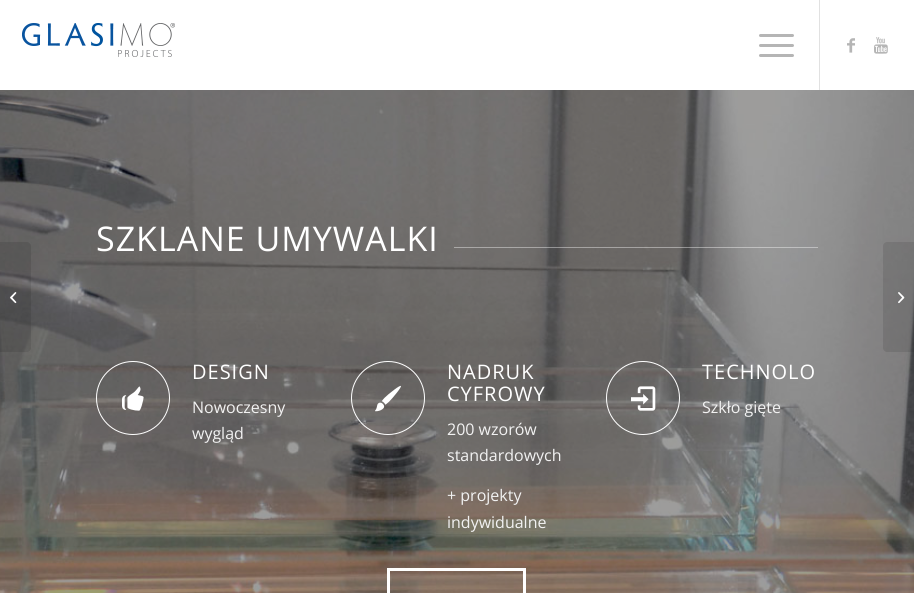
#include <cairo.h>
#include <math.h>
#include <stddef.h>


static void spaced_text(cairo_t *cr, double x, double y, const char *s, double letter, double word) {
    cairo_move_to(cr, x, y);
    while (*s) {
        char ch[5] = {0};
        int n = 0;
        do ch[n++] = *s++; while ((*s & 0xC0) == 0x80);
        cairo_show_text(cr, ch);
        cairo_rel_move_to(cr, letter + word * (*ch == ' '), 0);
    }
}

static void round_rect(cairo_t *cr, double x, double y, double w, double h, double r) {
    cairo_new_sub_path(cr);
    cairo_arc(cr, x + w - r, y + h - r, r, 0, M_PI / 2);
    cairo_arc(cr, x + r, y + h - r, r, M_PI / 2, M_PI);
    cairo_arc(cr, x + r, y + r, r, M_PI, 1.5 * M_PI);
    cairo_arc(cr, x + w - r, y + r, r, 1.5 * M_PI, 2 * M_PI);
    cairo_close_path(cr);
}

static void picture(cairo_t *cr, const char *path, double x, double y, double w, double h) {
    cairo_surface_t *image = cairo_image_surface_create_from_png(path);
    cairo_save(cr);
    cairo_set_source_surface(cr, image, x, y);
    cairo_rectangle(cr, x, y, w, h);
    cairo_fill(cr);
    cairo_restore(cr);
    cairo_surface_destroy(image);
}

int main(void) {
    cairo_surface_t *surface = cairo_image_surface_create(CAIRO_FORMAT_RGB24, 914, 593);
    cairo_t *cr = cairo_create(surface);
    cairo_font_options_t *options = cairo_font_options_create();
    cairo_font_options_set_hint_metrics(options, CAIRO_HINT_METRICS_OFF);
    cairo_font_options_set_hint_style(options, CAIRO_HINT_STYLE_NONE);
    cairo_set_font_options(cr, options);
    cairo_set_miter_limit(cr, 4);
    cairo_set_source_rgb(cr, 1, 1, 1);
    cairo_paint(cr);
    picture(cr, "img1.png", 22, 23, 153, 34);
    cairo_set_source_rgb(cr, 0.882, 0.882, 0.882);
    cairo_rectangle(cr, 819, 0, 1, 90);
    cairo_fill(cr);
    cairo_set_source_rgb(cr, 0.71, 0.71, 0.71);
    round_rect(cr, 759, 44, 35, 3, 1.5);
    cairo_fill(cr);
    round_rect(cr, 759, 34, 35, 3, 1.5);
    cairo_fill(cr);
    round_rect(cr, 759, 54, 35, 3, 1.5);
    cairo_fill(cr);
    picture(cr, "img2.png", 847, 38, 8, 15);
    picture(cr, "img3.png", 874, 37, 14, 17);
    picture(cr, "img5.png", 0, 90, 914, 503);
    cairo_set_source_rgba(cr, 0, 0, 0, 0.1);
    cairo_new_path(cr);
    cairo_move_to(cr, 0, 242);
    cairo_line_to(cr, 27, 242);
    cairo_curve_to(cr, 29, 242, 31, 244, 31, 246);
    cairo_line_to(cr, 31, 348);
    cairo_curve_to(cr, 31, 350, 29, 352, 27, 352);
    cairo_line_to(cr, 0, 352);
    cairo_close_path(cr);
    cairo_fill(cr);
    picture(cr, "img4.png", 10, 292, 7, 12);
    cairo_select_font_face(cr, "Open Sans", CAIRO_FONT_SLANT_NORMAL, CAIRO_FONT_WEIGHT_NORMAL);
    cairo_set_font_size(cr, 34);
    cairo_set_source_rgb(cr, 1, 1, 1);
    spaced_text(cr, 96, 251, "SZKLANE UMYWALKI", 1, 0);
    cairo_set_source_rgba(cr, 1, 1, 1, 0.4);
    cairo_rectangle(cr, 454, 247, 364, 1);
    cairo_fill(cr);
    cairo_arc(cr, 133, 398, 36.5, 0, 2 * M_PI);
    cairo_set_source_rgb(cr, 1, 1, 1);
    cairo_set_line_width(cr, 1);
    cairo_stroke(cr);
    picture(cr, "img6.png", 122, 386, 22, 25);
    cairo_set_font_size(cr, 20);
    spaced_text(cr, 192, 379, "DESIGN", 1, 0);
    cairo_set_font_size(cr, 16);
    cairo_set_source_rgb(cr, 0.949, 0.949, 0.949);
    cairo_move_to(cr, 192, 413);
    cairo_show_text(cr, "Nowoczesny");
    cairo_move_to(cr, 192, 439);
    cairo_show_text(cr, "wygląd");
    cairo_new_path(cr);
    cairo_arc(cr, 388, 398, 36.5, 0, 2 * M_PI);
    cairo_set_source_rgb(cr, 1, 1, 1);
    cairo_stroke(cr);
    picture(cr, "img7.png", 375, 385, 26, 27);
    cairo_set_font_size(cr, 20);
    spaced_text(cr, 447, 379, "NADRUK", 1, 0);
    spaced_text(cr, 447, 401, "CYFROWY", 1, 0);
    cairo_set_font_size(cr, 16);
    cairo_set_source_rgb(cr, 0.949, 0.949, 0.949);
    cairo_move_to(cr, 447, 435);
    cairo_show_text(cr, "200 wzorów");
    cairo_move_to(cr, 447, 461);
    cairo_show_text(cr, "standardowych");
    cairo_move_to(cr, 447, 501);
    cairo_show_text(cr, "+ projekty");
    cairo_move_to(cr, 447, 528);
    cairo_show_text(cr, "indywidualne");
    cairo_rectangle(cr, 388.5, 569.5, 136, 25);
    cairo_set_source_rgb(cr, 1, 1, 1);
    cairo_set_line_width(cr, 3);
    cairo_stroke(cr);
    cairo_arc(cr, 643, 398, 36.5, 0, 2 * M_PI);
    cairo_set_line_width(cr, 1);
    cairo_stroke(cr);
    picture(cr, "img8.png", 631, 386, 25, 25);
    cairo_set_font_size(cr, 20);
    spaced_text(cr, 702, 379, "TECHNOLO", 1, 0);
    cairo_set_font_size(cr, 16);
    cairo_set_source_rgb(cr, 0.949, 0.949, 0.949);
    cairo_move_to(cr, 702, 413);
    cairo_show_text(cr, "Szkło gięte");
    cairo_set_source_rgba(cr, 0, 0, 0, 0.1);
    cairo_new_path(cr);
    cairo_move_to(cr, 887, 242);
    cairo_line_to(cr, 914, 242);
    cairo_line_to(cr, 914, 352);
    cairo_line_to(cr, 887, 352);
    cairo_curve_to(cr, 885, 352, 883, 350, 883, 348);
    cairo_line_to(cr, 883, 246);
    cairo_curve_to(cr, 883, 244, 885, 242, 887, 242);
    cairo_close_path(cr);
    cairo_fill(cr);
    picture(cr, "img9.png", 898, 292, 7, 12);
    cairo_surface_write_to_png(surface, "page.png");
    cairo_font_options_destroy(options);
    cairo_destroy(cr);
    cairo_surface_destroy(surface);
    return 0;
}
